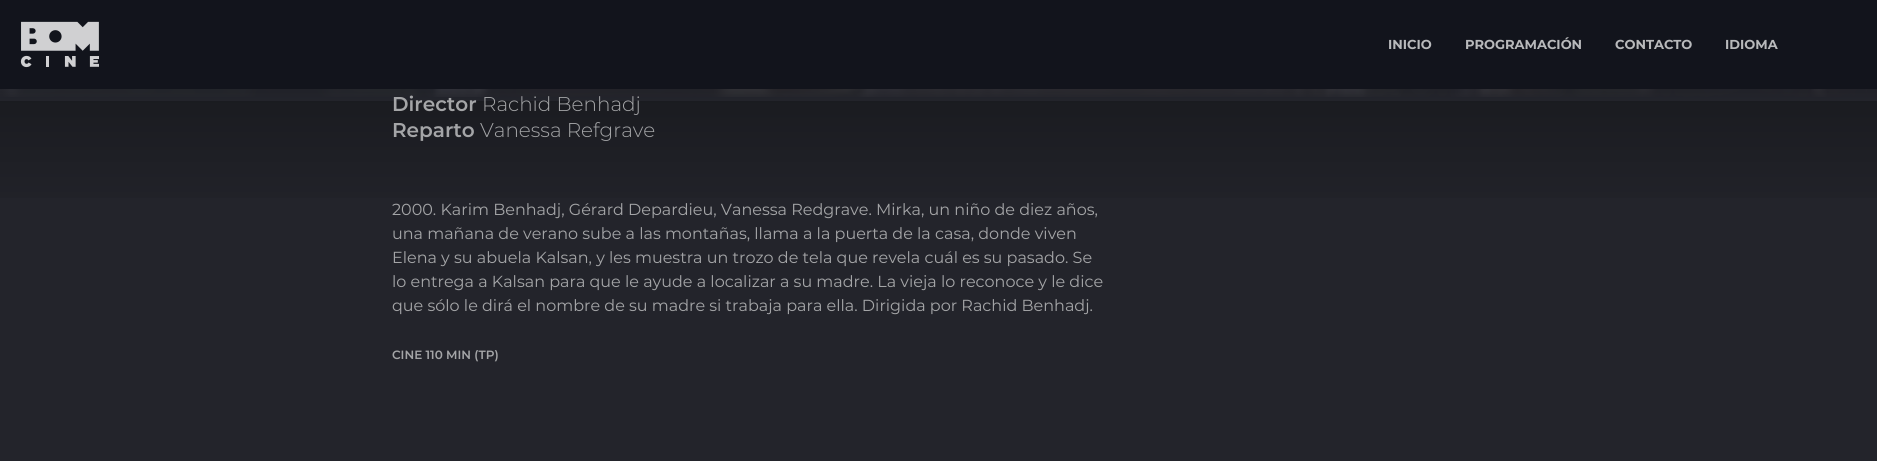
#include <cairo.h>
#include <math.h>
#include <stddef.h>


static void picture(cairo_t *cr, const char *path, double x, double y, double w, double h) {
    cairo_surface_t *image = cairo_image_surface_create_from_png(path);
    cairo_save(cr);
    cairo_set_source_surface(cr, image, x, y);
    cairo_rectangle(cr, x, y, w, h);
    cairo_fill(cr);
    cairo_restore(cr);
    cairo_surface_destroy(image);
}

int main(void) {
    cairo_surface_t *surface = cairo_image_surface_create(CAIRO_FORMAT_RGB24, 1877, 461);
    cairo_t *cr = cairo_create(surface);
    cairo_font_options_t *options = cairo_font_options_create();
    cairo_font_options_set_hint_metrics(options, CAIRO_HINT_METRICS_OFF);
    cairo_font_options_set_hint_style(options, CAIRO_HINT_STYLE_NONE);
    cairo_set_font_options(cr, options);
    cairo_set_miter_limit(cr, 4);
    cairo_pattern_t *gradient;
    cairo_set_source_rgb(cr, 0.137, 0.141, 0.169);
    cairo_paint(cr);
    cairo_set_source_rgb(cr, 0.071, 0.082, 0.11);
    cairo_rectangle(cr, 0, 0, 1877, 89);
    cairo_fill(cr);
    picture(cr, "img1.png", 20, 21, 79, 47);
    cairo_select_font_face(cr, "Montserrat", CAIRO_FONT_SLANT_NORMAL, CAIRO_FONT_WEIGHT_BOLD);
    cairo_set_font_size(cr, 13);
    cairo_set_source_rgb(cr, 0.722, 0.725, 0.733);
    cairo_move_to(cr, 1388, 49);
    cairo_show_text(cr, "INICIO");
    cairo_move_to(cr, 1465, 49);
    cairo_show_text(cr, "PROGRAMACIÓN");
    cairo_move_to(cr, 1615, 49);
    cairo_show_text(cr, "CONTACTO");
    cairo_move_to(cr, 1725, 49);
    cairo_show_text(cr, "IDIOMA");
    picture(cr, "img2.png", 0, 89, 1877, 8);
    gradient = cairo_pattern_create_linear(939, -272, 939, 228);
    cairo_pattern_add_color_stop_rgba(gradient, 0, 0.004, 0.004, 0.004, 1);
    cairo_pattern_add_color_stop_rgba(gradient, 0.5, 0.071, 0.075, 0.086, 1);
    cairo_pattern_add_color_stop_rgba(gradient, 1, 0.137, 0.141, 0.169, 1);
    cairo_set_source(cr, gradient);
    cairo_pattern_destroy(gradient);
    cairo_rectangle(cr, 0, 97, 1877, 101);
    cairo_fill(cr);
    gradient = cairo_pattern_create_linear(939, -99, 939, 101);
    cairo_pattern_add_color_stop_rgba(gradient, 0, 0.137, 0.141, 0.169, 0);
    cairo_pattern_add_color_stop_rgba(gradient, 0.01, 0.137, 0.141, 0.169, 0.01);
    cairo_pattern_add_color_stop_rgba(gradient, 1, 0.137, 0.141, 0.169, 1);
    cairo_set_source(cr, gradient);
    cairo_pattern_destroy(gradient);
    cairo_rectangle(cr, 0, 89, 1877, 12);
    cairo_fill(cr);
    cairo_select_font_face(cr, "Montserrat SemiBold", CAIRO_FONT_SLANT_NORMAL, CAIRO_FONT_WEIGHT_NORMAL);
    cairo_set_font_size(cr, 20);
    cairo_set_source_rgb(cr, 0.643, 0.647, 0.655);
    cairo_move_to(cr, 392, 111);
    cairo_show_text(cr, "Director");
    cairo_select_font_face(cr, "Montserrat Light", CAIRO_FONT_SLANT_NORMAL, CAIRO_FONT_WEIGHT_NORMAL);
    cairo_move_to(cr, 482, 111);
    cairo_show_text(cr, "Rachid Benhadj");
    cairo_select_font_face(cr, "Montserrat SemiBold", CAIRO_FONT_SLANT_NORMAL, CAIRO_FONT_WEIGHT_NORMAL);
    cairo_move_to(cr, 392, 137);
    cairo_show_text(cr, "Reparto");
    cairo_select_font_face(cr, "Montserrat Light", CAIRO_FONT_SLANT_NORMAL, CAIRO_FONT_WEIGHT_NORMAL);
    cairo_move_to(cr, 480, 137);
    cairo_show_text(cr, "Vanessa Refgrave");
    cairo_select_font_face(cr, "Montserrat", CAIRO_FONT_SLANT_NORMAL, CAIRO_FONT_WEIGHT_NORMAL);
    cairo_set_font_size(cr, 16);
    cairo_move_to(cr, 392, 215);
    cairo_show_text(cr, "2000. Karim Benhadj, Gérard Depardieu, Vanessa Redgrave. Mirka, un niño de diez años,");
    cairo_move_to(cr, 392, 239);
    cairo_show_text(cr, "una mañana de verano sube a las montañas, llama a la puerta de la casa, donde viven");
    cairo_move_to(cr, 392, 263);
    cairo_show_text(cr, "Elena y su abuela Kalsan, y les muestra un trozo de tela que revela cuál es su pasado. Se");
    cairo_move_to(cr, 392, 287);
    cairo_show_text(cr, "lo entrega a Kalsan para que le ayude a localizar a su madre. La vieja lo reconoce y le dice");
    cairo_move_to(cr, 392, 311);
    cairo_show_text(cr, "que sólo le dirá el nombre de su madre si trabaja para ella. Dirigida por Rachid Benhadj.");
    cairo_select_font_face(cr, "Montserrat SemiBold", CAIRO_FONT_SLANT_NORMAL, CAIRO_FONT_WEIGHT_NORMAL);
    cairo_set_font_size(cr, 12);
    cairo_move_to(cr, 392, 359);
    cairo_show_text(cr, "CINE 110 MIN (TP)");
    cairo_surface_write_to_png(surface, "page.png");
    cairo_font_options_destroy(options);
    cairo_destroy(cr);
    cairo_surface_destroy(surface);
    return 0;
}
